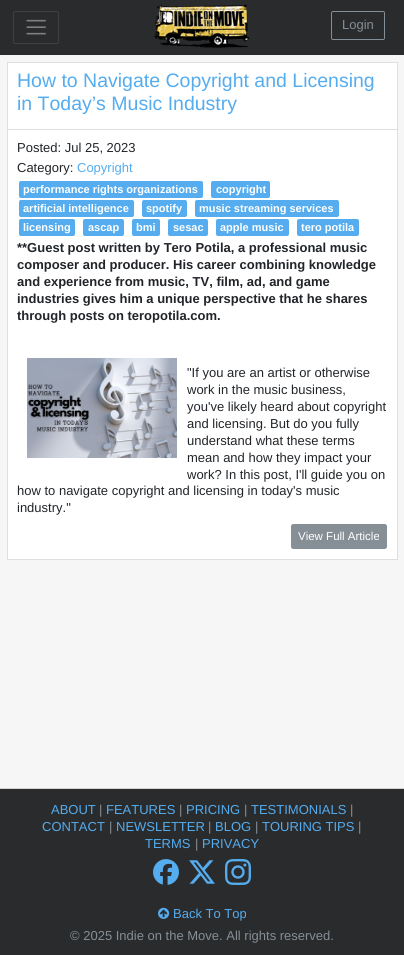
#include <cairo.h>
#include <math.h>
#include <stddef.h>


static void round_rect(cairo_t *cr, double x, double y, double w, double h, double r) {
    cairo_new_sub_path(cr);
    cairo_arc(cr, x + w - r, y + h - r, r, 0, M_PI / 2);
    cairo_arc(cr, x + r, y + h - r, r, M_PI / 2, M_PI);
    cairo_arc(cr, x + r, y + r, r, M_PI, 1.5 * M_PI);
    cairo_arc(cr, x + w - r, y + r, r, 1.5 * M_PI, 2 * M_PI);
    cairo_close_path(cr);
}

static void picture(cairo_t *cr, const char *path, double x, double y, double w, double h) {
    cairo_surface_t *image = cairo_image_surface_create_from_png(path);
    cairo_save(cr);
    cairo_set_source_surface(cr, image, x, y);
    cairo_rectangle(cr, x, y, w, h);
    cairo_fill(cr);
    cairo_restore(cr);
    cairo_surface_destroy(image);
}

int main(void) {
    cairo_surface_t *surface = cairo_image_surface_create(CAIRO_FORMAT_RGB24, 404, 955);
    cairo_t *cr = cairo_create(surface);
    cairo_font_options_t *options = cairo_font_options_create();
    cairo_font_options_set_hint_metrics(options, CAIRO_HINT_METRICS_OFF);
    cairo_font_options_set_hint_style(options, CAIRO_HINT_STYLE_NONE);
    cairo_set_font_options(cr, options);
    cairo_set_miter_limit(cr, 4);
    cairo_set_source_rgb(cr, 0.961, 0.961, 0.961);
    cairo_paint(cr);
    cairo_set_source_rgb(cr, 0.161, 0.169, 0.173);
    cairo_rectangle(cr, 0, 0, 404, 55);
    cairo_fill(cr);
    round_rect(cr, 13.5, 11.5, 45, 32, 1.5);
    cairo_set_source_rgb(cr, 0.243, 0.251, 0.255);
    cairo_set_line_width(cr, 1);
    cairo_stroke(cr);
    picture(cr, "img1.png", 26, 19, 20, 16);
    picture(cr, "img2.png", 154, 4, 96, 44);
    round_rect(cr, 331.5, 11.5, 53, 28, 1.5);
    cairo_set_source_rgb(cr, 0.525, 0.557, 0.588);
    cairo_stroke(cr);
    cairo_select_font_face(cr, "Liberation Sans", CAIRO_FONT_SLANT_NORMAL, CAIRO_FONT_WEIGHT_NORMAL);
    cairo_set_font_size(cr, 13);
    cairo_move_to(cr, 342, 29);
    cairo_show_text(cr, "Login");
    cairo_set_source_rgb(cr, 1, 1, 1);
    cairo_rectangle(cr, 7.5, 62.5, 390, 497);
    cairo_fill_preserve(cr);
    cairo_set_source_rgb(cr, 0.875, 0.875, 0.875);
    cairo_stroke(cr);
    cairo_rectangle(cr, 8, 129, 389, 1);
    cairo_fill(cr);
    cairo_set_font_size(cr, 19.5);
    cairo_set_source_rgb(cr, 0.333, 0.675, 0.933);
    cairo_move_to(cr, 17, 87);
    cairo_show_text(cr, "How to Navigate Copyright and Licensing");
    cairo_move_to(cr, 17, 110);
    cairo_show_text(cr, "in Today’s Music Industry");
    cairo_set_font_size(cr, 13);
    cairo_set_source_rgb(cr, 0.129, 0.145, 0.161);
    cairo_move_to(cr, 17, 152);
    cairo_show_text(cr, "Posted: Jul 25, 2023");
    cairo_move_to(cr, 17, 172);
    cairo_show_text(cr, "Category:");
    cairo_set_source_rgb(cr, 0.333, 0.675, 0.933);
    cairo_move_to(cr, 77, 172);
    cairo_show_text(cr, "Copyright");
    round_rect(cr, 19, 181, 184, 17, 2);
    cairo_fill(cr);
    cairo_select_font_face(cr, "Liberation Sans", CAIRO_FONT_SLANT_NORMAL, CAIRO_FONT_WEIGHT_BOLD);
    cairo_set_font_size(cr, 11);
    cairo_set_source_rgb(cr, 1, 1, 1);
    cairo_move_to(cr, 23, 193);
    cairo_show_text(cr, "performance rights organizations");
    cairo_set_source_rgb(cr, 0.333, 0.675, 0.933);
    round_rect(cr, 211, 181, 59, 17, 2);
    cairo_fill(cr);
    cairo_set_source_rgb(cr, 1, 1, 1);
    cairo_move_to(cr, 216, 193);
    cairo_show_text(cr, "copyright");
    cairo_set_source_rgb(cr, 0.333, 0.675, 0.933);
    round_rect(cr, 19, 200, 115, 17, 2);
    cairo_fill(cr);
    cairo_set_source_rgb(cr, 1, 1, 1);
    cairo_move_to(cr, 23, 212);
    cairo_show_text(cr, "artificial intelligence");
    cairo_set_source_rgb(cr, 0.333, 0.675, 0.933);
    round_rect(cr, 142, 200, 45, 17, 2);
    cairo_fill(cr);
    cairo_set_source_rgb(cr, 1, 1, 1);
    cairo_move_to(cr, 146, 212);
    cairo_show_text(cr, "spotify");
    cairo_set_source_rgb(cr, 0.333, 0.675, 0.933);
    round_rect(cr, 195, 200, 144, 17, 2);
    cairo_fill(cr);
    cairo_set_source_rgb(cr, 1, 1, 1);
    cairo_move_to(cr, 199, 212);
    cairo_show_text(cr, "music streaming services");
    cairo_set_source_rgb(cr, 0.333, 0.675, 0.933);
    round_rect(cr, 19, 219, 56, 17, 2);
    cairo_fill(cr);
    cairo_set_source_rgb(cr, 1, 1, 1);
    cairo_move_to(cr, 23, 231);
    cairo_show_text(cr, "licensing");
    cairo_set_source_rgb(cr, 0.333, 0.675, 0.933);
    round_rect(cr, 83, 219, 41, 17, 2);
    cairo_fill(cr);
    cairo_set_source_rgb(cr, 1, 1, 1);
    cairo_move_to(cr, 88, 231);
    cairo_show_text(cr, "ascap");
    cairo_set_source_rgb(cr, 0.333, 0.675, 0.933);
    round_rect(cr, 132, 219, 28, 17, 2);
    cairo_fill(cr);
    cairo_set_source_rgb(cr, 1, 1, 1);
    cairo_move_to(cr, 136, 231);
    cairo_show_text(cr, "bmi");
    cairo_set_source_rgb(cr, 0.333, 0.675, 0.933);
    round_rect(cr, 168, 219, 40, 17, 2);
    cairo_fill(cr);
    cairo_set_source_rgb(cr, 1, 1, 1);
    cairo_move_to(cr, 173, 231);
    cairo_show_text(cr, "sesac");
    cairo_set_source_rgb(cr, 0.333, 0.675, 0.933);
    round_rect(cr, 216, 219, 73, 17, 2);
    cairo_fill(cr);
    cairo_set_source_rgb(cr, 1, 1, 1);
    cairo_move_to(cr, 220, 231);
    cairo_show_text(cr, "apple music");
    cairo_set_source_rgb(cr, 0.333, 0.675, 0.933);
    round_rect(cr, 297, 219, 62, 17, 2);
    cairo_fill(cr);
    cairo_set_source_rgb(cr, 1, 1, 1);
    cairo_move_to(cr, 301, 231);
    cairo_show_text(cr, "tero potila");
    cairo_set_font_size(cr, 13);
    cairo_set_source_rgb(cr, 0.129, 0.145, 0.161);
    cairo_move_to(cr, 17, 252);
    cairo_show_text(cr, "**Guest post written by Tero Potila, a professional music");
    cairo_move_to(cr, 17, 269);
    cairo_show_text(cr, "composer and producer. His career combining knowledge");
    cairo_move_to(cr, 17, 286);
    cairo_show_text(cr, "and experience from music, TV, film, ad, and game");
    cairo_move_to(cr, 17, 303);
    cairo_show_text(cr, "industries gives him a unique perspective that he shares");
    cairo_move_to(cr, 17, 320);
    cairo_show_text(cr, "through posts on teropotila.com.");
    picture(cr, "img3.png", 27, 358, 150, 100);
    cairo_select_font_face(cr, "Liberation Sans", CAIRO_FONT_SLANT_NORMAL, CAIRO_FONT_WEIGHT_NORMAL);
    cairo_move_to(cr, 187, 377);
    cairo_show_text(cr, "\"If you are an artist or otherwise");
    cairo_move_to(cr, 187, 394);
    cairo_show_text(cr, "work in the music business,");
    cairo_move_to(cr, 187, 411);
    cairo_show_text(cr, "you've likely heard about copyright");
    cairo_move_to(cr, 187, 428);
    cairo_show_text(cr, "and licensing. But do you fully");
    cairo_move_to(cr, 187, 445);
    cairo_show_text(cr, "understand what these terms");
    cairo_move_to(cr, 187, 462);
    cairo_show_text(cr, "mean and how they impact your");
    cairo_move_to(cr, 187, 479);
    cairo_show_text(cr, "work? In this post, I'll guide you on");
    cairo_move_to(cr, 17, 495);
    cairo_show_text(cr, "how to navigate copyright and licensing in today's music");
    cairo_move_to(cr, 17, 512);
    cairo_show_text(cr, "industry.\"");
    cairo_set_source_rgb(cr, 0.525, 0.557, 0.588);
    round_rect(cr, 291.5, 524.5, 95, 24, 2);
    cairo_fill_preserve(cr);
    cairo_stroke(cr);
    cairo_set_font_size(cr, 11.5);
    cairo_set_source_rgb(cr, 1, 1, 1);
    cairo_move_to(cr, 298, 540);
    cairo_show_text(cr, "View Full Article");
    cairo_set_source_rgb(cr, 0.161, 0.169, 0.173);
    cairo_rectangle(cr, 0, 789, 404, 166);
    cairo_fill(cr);
    cairo_set_source_rgb(cr, 0.827, 0.827, 0.827);
    cairo_rectangle(cr, 0, 788, 404, 1);
    cairo_fill(cr);
    cairo_set_font_size(cr, 13);
    cairo_set_source_rgb(cr, 0.333, 0.675, 0.933);
    cairo_move_to(cr, 51, 814);
    cairo_show_text(cr, "ABOUT");
    cairo_set_source_rgb(cr, 0.525, 0.557, 0.588);
    cairo_move_to(cr, 99, 814);
    cairo_show_text(cr, "|");
    cairo_set_source_rgb(cr, 0.333, 0.675, 0.933);
    cairo_move_to(cr, 106, 814);
    cairo_show_text(cr, "FEATURES");
    cairo_set_source_rgb(cr, 0.525, 0.557, 0.588);
    cairo_move_to(cr, 179, 814);
    cairo_show_text(cr, "|");
    cairo_set_source_rgb(cr, 0.333, 0.675, 0.933);
    cairo_move_to(cr, 186, 814);
    cairo_show_text(cr, "PRICING");
    cairo_set_source_rgb(cr, 0.525, 0.557, 0.588);
    cairo_move_to(cr, 244, 814);
    cairo_show_text(cr, "|");
    cairo_set_source_rgb(cr, 0.333, 0.675, 0.933);
    cairo_move_to(cr, 251, 814);
    cairo_show_text(cr, "TESTIMONIALS");
    cairo_set_source_rgb(cr, 0.525, 0.557, 0.588);
    cairo_move_to(cr, 350, 814);
    cairo_show_text(cr, "|");
    cairo_set_source_rgb(cr, 0.333, 0.675, 0.933);
    cairo_move_to(cr, 42, 831);
    cairo_show_text(cr, "CONTACT");
    cairo_set_source_rgb(cr, 0.525, 0.557, 0.588);
    cairo_move_to(cr, 109, 831);
    cairo_show_text(cr, "|");
    cairo_set_source_rgb(cr, 0.333, 0.675, 0.933);
    cairo_move_to(cr, 116, 831);
    cairo_show_text(cr, "NEWSLETTER");
    cairo_set_source_rgb(cr, 0.525, 0.557, 0.588);
    cairo_move_to(cr, 208, 831);
    cairo_show_text(cr, "|");
    cairo_set_source_rgb(cr, 0.333, 0.675, 0.933);
    cairo_move_to(cr, 215, 831);
    cairo_show_text(cr, "BLOG");
    cairo_set_source_rgb(cr, 0.525, 0.557, 0.588);
    cairo_move_to(cr, 255, 831);
    cairo_show_text(cr, "|");
    cairo_set_source_rgb(cr, 0.333, 0.675, 0.933);
    cairo_move_to(cr, 262, 831);
    cairo_show_text(cr, "TOURING TIPS");
    cairo_set_source_rgb(cr, 0.525, 0.557, 0.588);
    cairo_move_to(cr, 358, 831);
    cairo_show_text(cr, "|");
    cairo_set_source_rgb(cr, 0.333, 0.675, 0.933);
    cairo_move_to(cr, 145, 848);
    cairo_show_text(cr, "TERMS");
    cairo_set_source_rgb(cr, 0.525, 0.557, 0.588);
    cairo_move_to(cr, 195, 848);
    cairo_show_text(cr, "|");
    cairo_set_source_rgb(cr, 0.333, 0.675, 0.933);
    cairo_move_to(cr, 202, 848);
    cairo_show_text(cr, "PRIVACY");
    picture(cr, "img4.png", 153, 859, 26, 26);
    picture(cr, "img5.png", 189, 860, 26, 24);
    picture(cr, "img6.png", 225, 859, 26, 26);
    picture(cr, "img7.png", 158, 907, 12, 12);
    cairo_move_to(cr, 173, 918);
    cairo_show_text(cr, "Back To Top");
    cairo_set_source_rgb(cr, 0.525, 0.557, 0.588);
    cairo_move_to(cr, 70, 940);
    cairo_show_text(cr, "© 2025 Indie on the Move. All rights reserved.");
    cairo_surface_write_to_png(surface, "page.png");
    cairo_font_options_destroy(options);
    cairo_destroy(cr);
    cairo_surface_destroy(surface);
    return 0;
}
